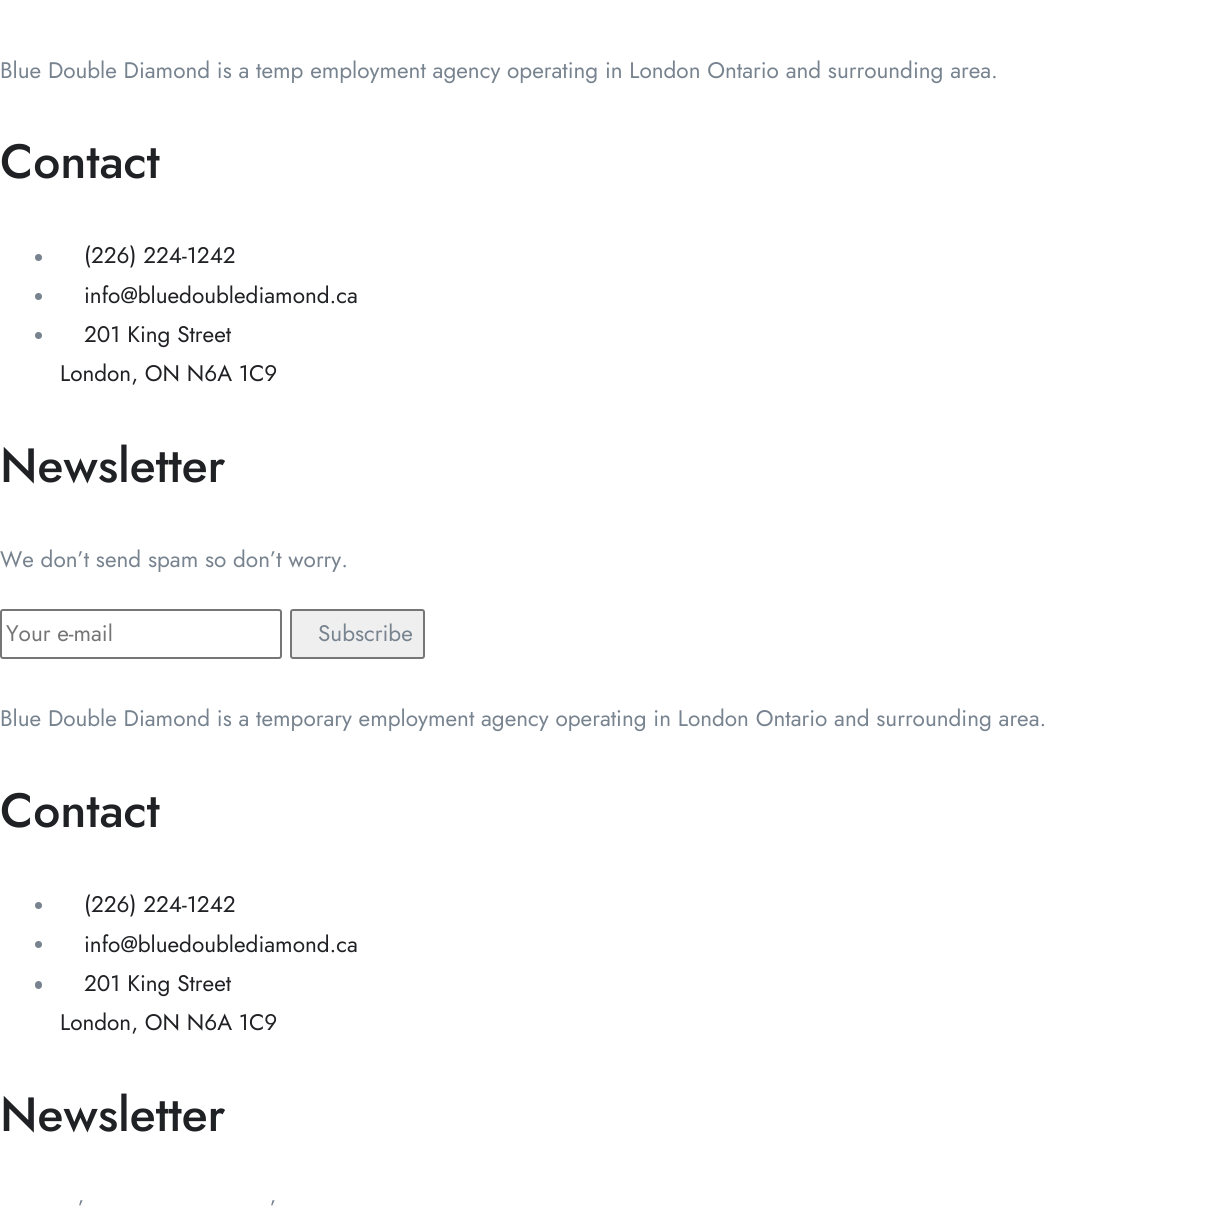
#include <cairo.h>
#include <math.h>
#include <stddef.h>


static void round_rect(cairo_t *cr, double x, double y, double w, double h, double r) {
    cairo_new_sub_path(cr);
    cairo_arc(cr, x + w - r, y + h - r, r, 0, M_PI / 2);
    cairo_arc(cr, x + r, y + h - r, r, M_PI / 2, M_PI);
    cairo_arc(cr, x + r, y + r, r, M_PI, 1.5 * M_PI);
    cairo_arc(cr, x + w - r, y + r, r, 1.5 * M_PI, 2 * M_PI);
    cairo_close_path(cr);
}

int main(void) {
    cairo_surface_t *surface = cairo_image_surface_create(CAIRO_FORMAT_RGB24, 1205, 1210);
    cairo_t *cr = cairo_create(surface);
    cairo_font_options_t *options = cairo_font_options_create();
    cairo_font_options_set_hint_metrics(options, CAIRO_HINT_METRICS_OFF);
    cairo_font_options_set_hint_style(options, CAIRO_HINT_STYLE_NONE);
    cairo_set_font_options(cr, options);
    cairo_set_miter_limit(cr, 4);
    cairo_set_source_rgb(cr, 1, 1, 1);
    cairo_paint(cr);
    cairo_select_font_face(cr, "Jost", CAIRO_FONT_SLANT_NORMAL, CAIRO_FONT_WEIGHT_NORMAL);
    cairo_set_font_size(cr, 22.5);
    cairo_set_source_rgb(cr, 0.467, 0.514, 0.561);
    cairo_move_to(cr, 0, 78);
    cairo_show_text(cr, "Blue Double Diamond is a temp employment agency operating in London Ontario and surrounding area.");
    cairo_select_font_face(cr, "Jost Medium", CAIRO_FONT_SLANT_NORMAL, CAIRO_FONT_WEIGHT_NORMAL);
    cairo_set_font_size(cr, 48);
    cairo_set_source_rgb(cr, 0.125, 0.129, 0.141);
    cairo_move_to(cr, 0, 178);
    cairo_show_text(cr, "Contact");
    cairo_set_source_rgb(cr, 0.467, 0.514, 0.561);
    cairo_new_path(cr);
    cairo_arc(cr, 38.5, 257.5, 3.5, 0, 2 * M_PI);
    cairo_fill(cr);
    cairo_select_font_face(cr, "Jost", CAIRO_FONT_SLANT_NORMAL, CAIRO_FONT_WEIGHT_NORMAL);
    cairo_set_font_size(cr, 22.5);
    cairo_set_source_rgb(cr, 0.125, 0.129, 0.141);
    cairo_move_to(cr, 84, 263);
    cairo_show_text(cr, "(226) 224-1242");
    cairo_set_source_rgb(cr, 0.467, 0.514, 0.561);
    cairo_new_path(cr);
    cairo_arc(cr, 38.5, 296.5, 3.5, 0, 2 * M_PI);
    cairo_fill(cr);
    cairo_set_source_rgb(cr, 0.125, 0.129, 0.141);
    cairo_move_to(cr, 84, 303);
    cairo_show_text(cr, "info@bluedoublediamond.ca");
    cairo_set_source_rgb(cr, 0.467, 0.514, 0.561);
    cairo_new_path(cr);
    cairo_arc(cr, 38.5, 335.5, 3.5, 0, 2 * M_PI);
    cairo_fill(cr);
    cairo_set_source_rgb(cr, 0.125, 0.129, 0.141);
    cairo_move_to(cr, 84, 342);
    cairo_show_text(cr, "201 King Street");
    cairo_move_to(cr, 60, 381);
    cairo_show_text(cr, "London, ON N6A 1C9");
    cairo_select_font_face(cr, "Jost Medium", CAIRO_FONT_SLANT_NORMAL, CAIRO_FONT_WEIGHT_NORMAL);
    cairo_set_font_size(cr, 48);
    cairo_move_to(cr, 0, 482);
    cairo_show_text(cr, "Newsletter");
    cairo_select_font_face(cr, "Jost", CAIRO_FONT_SLANT_NORMAL, CAIRO_FONT_WEIGHT_NORMAL);
    cairo_set_font_size(cr, 22.5);
    cairo_set_source_rgb(cr, 0.467, 0.514, 0.561);
    cairo_move_to(cr, 0, 567);
    cairo_show_text(cr, "We don’t send spam so don’t worry.");
    round_rect(cr, 1, 610, 280, 48, 2);
    cairo_set_source_rgb(cr, 0.463, 0.463, 0.463);
    cairo_stroke(cr);
    cairo_set_source_rgb(cr, 0.459, 0.459, 0.459);
    cairo_move_to(cr, 6, 641);
    cairo_show_text(cr, "Your e-mail");
    cairo_set_source_rgb(cr, 0.937, 0.937, 0.937);
    round_rect(cr, 291, 610, 133, 48, 2);
    cairo_fill_preserve(cr);
    cairo_set_source_rgb(cr, 0.463, 0.463, 0.463);
    cairo_stroke(cr);
    cairo_set_source_rgb(cr, 0.467, 0.514, 0.561);
    cairo_move_to(cr, 318, 641);
    cairo_show_text(cr, "Subscribe");
    cairo_move_to(cr, 0, 726);
    cairo_show_text(cr, "Blue Double Diamond is a temporary employment agency operating in London Ontario and surrounding area.");
    cairo_select_font_face(cr, "Jost Medium", CAIRO_FONT_SLANT_NORMAL, CAIRO_FONT_WEIGHT_NORMAL);
    cairo_set_font_size(cr, 48);
    cairo_set_source_rgb(cr, 0.125, 0.129, 0.141);
    cairo_move_to(cr, 0, 827);
    cairo_show_text(cr, "Contact");
    cairo_set_source_rgb(cr, 0.467, 0.514, 0.561);
    cairo_new_path(cr);
    cairo_arc(cr, 38.5, 905.5, 3.5, 0, 2 * M_PI);
    cairo_fill(cr);
    cairo_select_font_face(cr, "Jost", CAIRO_FONT_SLANT_NORMAL, CAIRO_FONT_WEIGHT_NORMAL);
    cairo_set_font_size(cr, 22.5);
    cairo_set_source_rgb(cr, 0.125, 0.129, 0.141);
    cairo_move_to(cr, 84, 912);
    cairo_show_text(cr, "(226) 224-1242");
    cairo_set_source_rgb(cr, 0.467, 0.514, 0.561);
    cairo_new_path(cr);
    cairo_arc(cr, 38.5, 944.5, 3.5, 0, 2 * M_PI);
    cairo_fill(cr);
    cairo_set_source_rgb(cr, 0.125, 0.129, 0.141);
    cairo_move_to(cr, 84, 952);
    cairo_show_text(cr, "info@bluedoublediamond.ca");
    cairo_set_source_rgb(cr, 0.467, 0.514, 0.561);
    round_rect(cr, 35, 981, 7, 8, 3.5);
    cairo_fill(cr);
    cairo_set_source_rgb(cr, 0.125, 0.129, 0.141);
    cairo_move_to(cr, 84, 991);
    cairo_show_text(cr, "201 King Street");
    cairo_move_to(cr, 60, 1030);
    cairo_show_text(cr, "London, ON N6A 1C9");
    cairo_select_font_face(cr, "Jost Medium", CAIRO_FONT_SLANT_NORMAL, CAIRO_FONT_WEIGHT_NORMAL);
    cairo_set_font_size(cr, 48);
    cairo_move_to(cr, 0, 1131);
    cairo_show_text(cr, "Newsletter");
    cairo_select_font_face(cr, "Jost", CAIRO_FONT_SLANT_NORMAL, CAIRO_FONT_WEIGHT_NORMAL);
    cairo_set_font_size(cr, 22.5);
    cairo_set_source_rgb(cr, 0.467, 0.514, 0.561);
    cairo_move_to(cr, 78, 1216);
    cairo_show_text(cr, "’");
    cairo_move_to(cr, 270, 1216);
    cairo_show_text(cr, "’");
    cairo_surface_write_to_png(surface, "page.png");
    cairo_font_options_destroy(options);
    cairo_destroy(cr);
    cairo_surface_destroy(surface);
    return 0;
}
